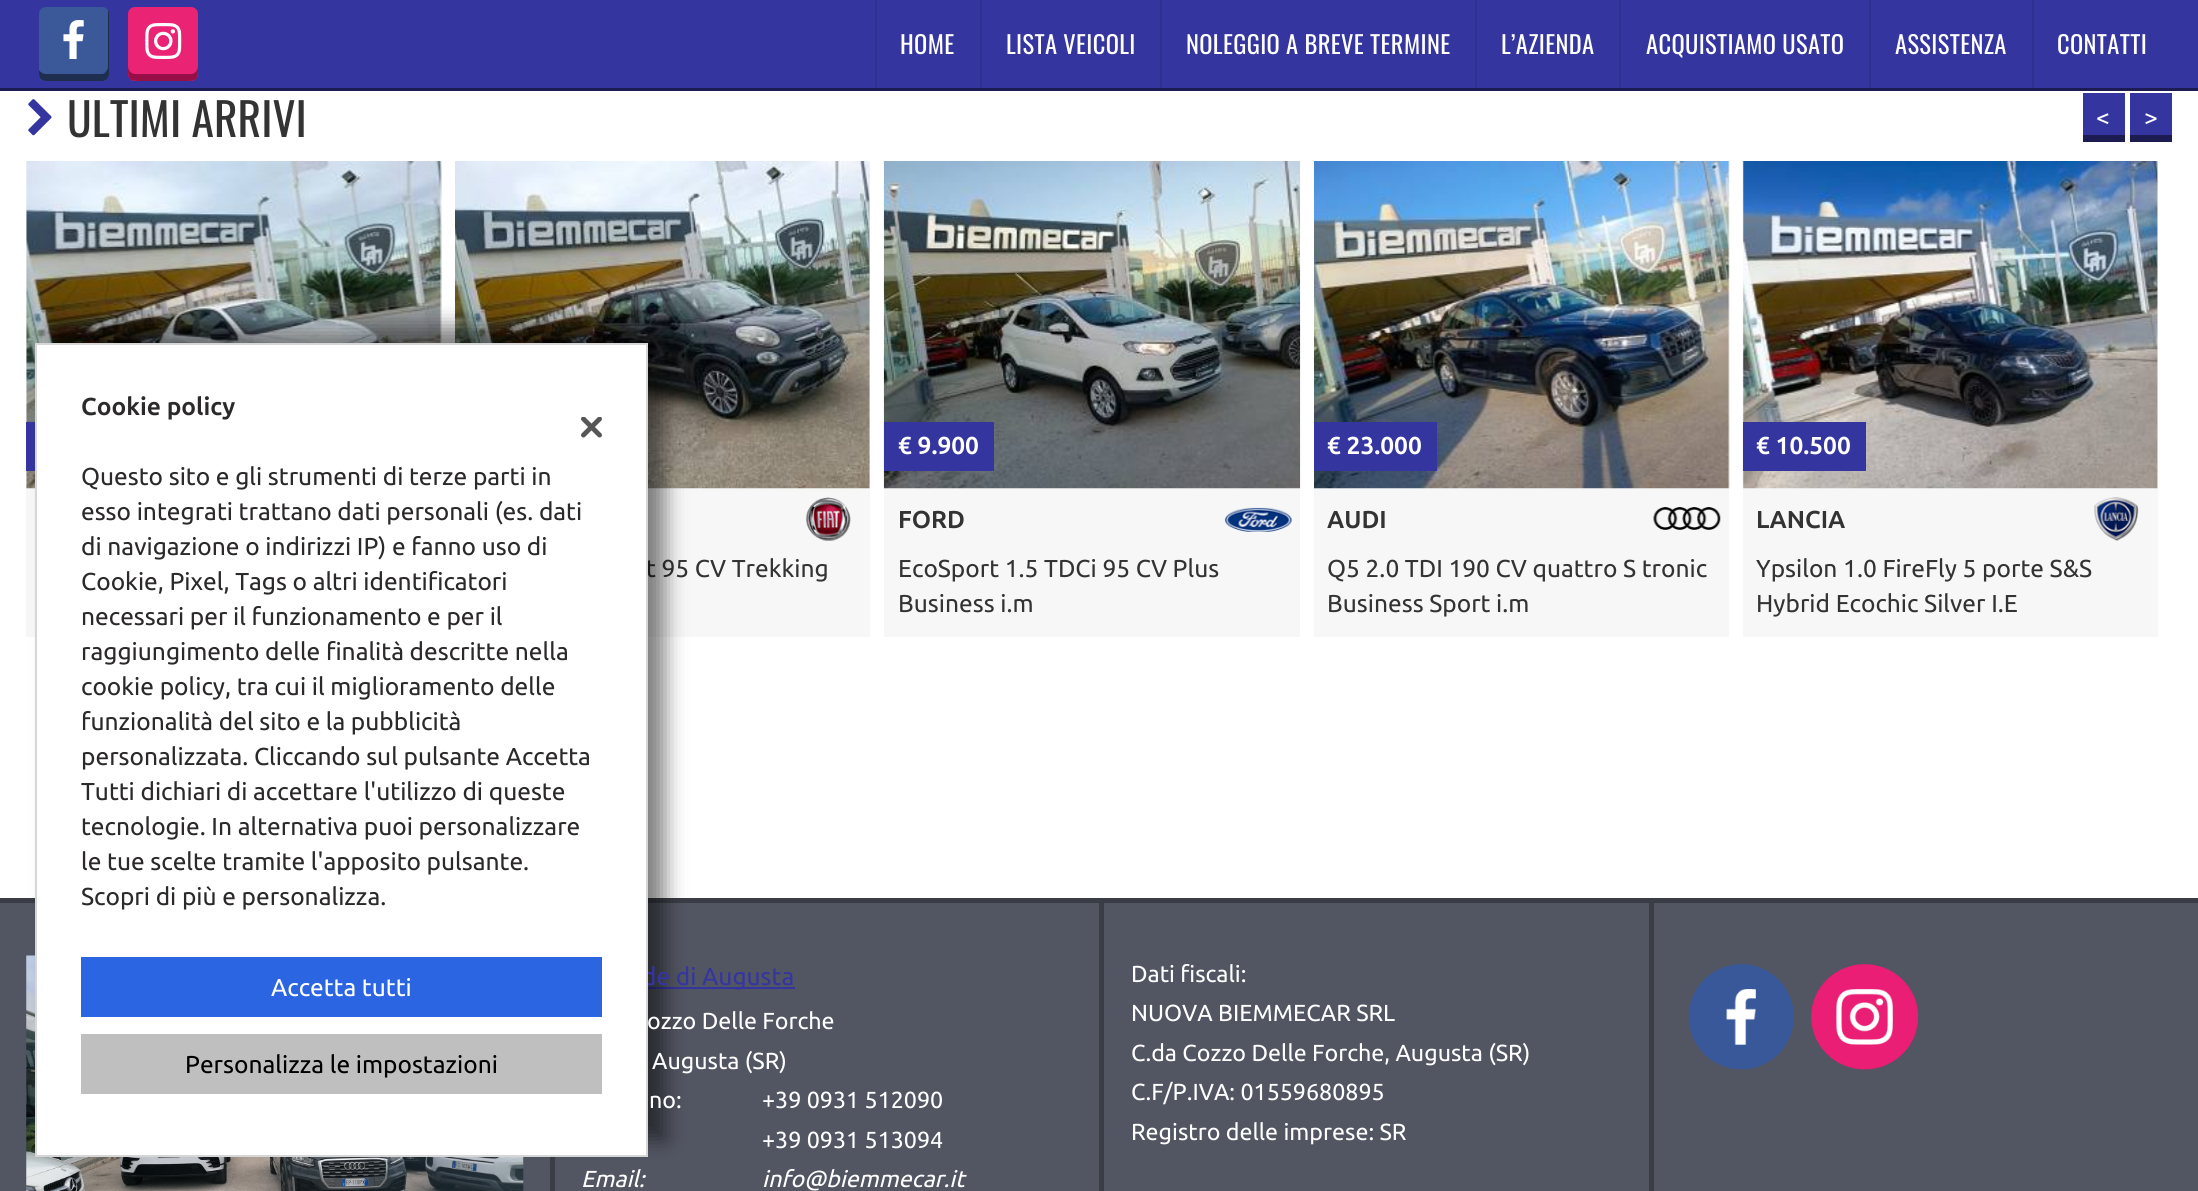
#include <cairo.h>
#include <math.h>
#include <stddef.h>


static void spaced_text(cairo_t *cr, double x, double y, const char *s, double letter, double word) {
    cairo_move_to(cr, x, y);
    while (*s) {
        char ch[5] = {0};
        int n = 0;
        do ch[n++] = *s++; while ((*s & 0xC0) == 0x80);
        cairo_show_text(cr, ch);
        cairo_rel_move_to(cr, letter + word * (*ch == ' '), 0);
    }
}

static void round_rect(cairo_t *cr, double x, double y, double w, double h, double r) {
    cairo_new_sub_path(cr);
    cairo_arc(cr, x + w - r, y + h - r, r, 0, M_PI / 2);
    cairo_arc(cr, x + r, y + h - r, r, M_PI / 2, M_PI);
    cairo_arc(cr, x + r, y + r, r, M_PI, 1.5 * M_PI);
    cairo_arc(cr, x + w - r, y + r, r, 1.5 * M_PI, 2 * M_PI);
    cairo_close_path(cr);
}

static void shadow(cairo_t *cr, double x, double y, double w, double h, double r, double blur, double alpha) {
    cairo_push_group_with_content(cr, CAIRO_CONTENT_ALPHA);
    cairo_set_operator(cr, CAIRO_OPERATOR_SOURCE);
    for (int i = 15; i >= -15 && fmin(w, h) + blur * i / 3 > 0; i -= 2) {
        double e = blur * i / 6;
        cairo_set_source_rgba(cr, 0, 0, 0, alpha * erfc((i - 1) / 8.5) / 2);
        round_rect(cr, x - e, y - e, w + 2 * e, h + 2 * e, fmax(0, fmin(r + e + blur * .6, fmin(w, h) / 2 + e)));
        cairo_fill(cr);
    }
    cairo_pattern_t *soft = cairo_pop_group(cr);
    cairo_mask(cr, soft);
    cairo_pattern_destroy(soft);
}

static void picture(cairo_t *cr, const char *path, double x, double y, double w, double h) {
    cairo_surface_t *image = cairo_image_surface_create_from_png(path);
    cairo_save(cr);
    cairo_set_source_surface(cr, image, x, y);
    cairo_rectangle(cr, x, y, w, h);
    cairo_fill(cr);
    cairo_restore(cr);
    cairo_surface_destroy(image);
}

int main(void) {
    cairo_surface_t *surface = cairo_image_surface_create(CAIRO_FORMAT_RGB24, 2198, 1191);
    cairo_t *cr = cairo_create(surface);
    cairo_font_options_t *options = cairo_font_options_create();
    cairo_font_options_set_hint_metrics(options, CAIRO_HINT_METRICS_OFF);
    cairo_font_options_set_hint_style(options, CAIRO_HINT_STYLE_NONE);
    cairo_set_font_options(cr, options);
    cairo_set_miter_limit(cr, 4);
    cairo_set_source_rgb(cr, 1, 1, 1);
    cairo_paint(cr);
    cairo_set_source_rgb(cr, 0.11, 0.11, 0.325);
    cairo_rectangle(cr, 0, 88, 2198, 3);
    cairo_fill(cr);
    cairo_set_source_rgb(cr, 0.208, 0.208, 0.627);
    cairo_rectangle(cr, 0, 0, 2198, 88);
    cairo_fill(cr);
    cairo_set_source_rgb(cr, 0.231, 0.349, 0.596);
    round_rect(cr, 39, 7, 70, 74, 7);
    cairo_fill(cr);
    cairo_set_source_rgb(cr, 0.118, 0.18, 0.31);
    cairo_new_path(cr);
    cairo_move_to(cr, 39, 70);
    cairo_line_to(cr, 39, 74);
    cairo_curve_to(cr, 39, 78, 42, 81, 46, 81);
    cairo_line_to(cr, 102, 81);
    cairo_curve_to(cr, 106, 81, 109, 78, 109, 74);
    cairo_line_to(cr, 109, 14);
    cairo_curve_to(cr, 109, 13, 109, 11, 108, 10);
    cairo_line_to(cr, 108, 66);
    cairo_curve_to(cr, 108, 70, 105, 74, 102, 74);
    cairo_line_to(cr, 46, 74);
    cairo_curve_to(cr, 43, 74, 40, 72, 39, 70);
    cairo_close_path(cr);
    cairo_fill(cr);
    picture(cr, "img1.png", 63, 20, 21, 39);
    cairo_set_source_rgb(cr, 0.918, 0.137, 0.455);
    round_rect(cr, 128, 7, 70, 74, 7);
    cairo_fill(cr);
    cairo_set_source_rgb(cr, 0.596, 0.059, 0.278);
    cairo_new_path(cr);
    cairo_move_to(cr, 128, 66);
    cairo_curve_to(cr, 128, 81, 128, 81, 144, 81);
    cairo_line_to(cr, 182, 81);
    cairo_curve_to(cr, 198, 81, 198, 81, 198, 66);
    cairo_curve_to(cr, 198, 70, 195, 74, 191, 74);
    cairo_line_to(cr, 135, 74);
    cairo_curve_to(cr, 131, 74, 128, 70, 128, 66);
    cairo_close_path(cr);
    cairo_fill(cr);
    picture(cr, "img2.png", 145, 23, 37, 36);
    cairo_set_source_rgb(cr, 0.188, 0.188, 0.569);
    cairo_rectangle(cr, 875, 0, 2, 88);
    cairo_fill(cr);
    cairo_select_font_face(cr, "Oswald", CAIRO_FONT_SLANT_NORMAL, CAIRO_FONT_WEIGHT_NORMAL);
    cairo_set_font_size(cr, 24.5);
    cairo_set_source_rgb(cr, 1, 1, 1);
    spaced_text(cr, 900, 54, "HOME", 0.35, 0);
    cairo_set_source_rgb(cr, 0.188, 0.188, 0.569);
    cairo_rectangle(cr, 980, 0, 2, 88);
    cairo_fill(cr);
    cairo_set_source_rgb(cr, 1, 1, 1);
    spaced_text(cr, 1006, 54, "LISTA VEICOLI", 0.35, 0);
    cairo_set_source_rgb(cr, 0.188, 0.188, 0.569);
    cairo_rectangle(cr, 1160, 0, 2, 88);
    cairo_fill(cr);
    cairo_set_source_rgb(cr, 1, 1, 1);
    spaced_text(cr, 1186, 54, "NOLEGGIO A BREVE TERMINE", 0.35, 0);
    cairo_set_source_rgb(cr, 0.188, 0.188, 0.569);
    cairo_rectangle(cr, 1475, 0, 2, 88);
    cairo_fill(cr);
    cairo_set_source_rgb(cr, 1, 1, 1);
    spaced_text(cr, 1501, 54, "L’AZIENDA", 0.35, 0);
    cairo_set_source_rgb(cr, 0.188, 0.188, 0.569);
    cairo_rectangle(cr, 1619, 0, 2, 88);
    cairo_fill(cr);
    cairo_set_source_rgb(cr, 1, 1, 1);
    spaced_text(cr, 1646, 54, "ACQUISTIAMO USATO", 0.35, 0);
    cairo_set_source_rgb(cr, 0.188, 0.188, 0.569);
    cairo_rectangle(cr, 1869, 0, 2, 88);
    cairo_fill(cr);
    cairo_set_source_rgb(cr, 1, 1, 1);
    spaced_text(cr, 1895, 54, "ASSISTENZA", 0.35, 0);
    cairo_set_source_rgb(cr, 0.188, 0.188, 0.569);
    cairo_rectangle(cr, 2032, 0, 2, 88);
    cairo_fill(cr);
    cairo_set_source_rgb(cr, 1, 1, 1);
    spaced_text(cr, 2057, 54, "CONTATTI", 0.35, 0);
    picture(cr, "img3.png", 28, 99, 24, 37);
    cairo_set_font_size(cr, 45.5);
    cairo_set_source_rgb(cr, 0.2, 0.2, 0.2);
    cairo_move_to(cr, 67, 137);
    cairo_show_text(cr, "ULTIMI ARRIVI");
    cairo_set_source_rgb(cr, 0.208, 0.208, 0.627);
    cairo_rectangle(cr, 2083, 93, 42, 42);
    cairo_fill(cr);
    cairo_set_source_rgb(cr, 0.11, 0.11, 0.325);
    cairo_rectangle(cr, 2083, 135, 42, 7);
    cairo_fill(cr);
    cairo_select_font_face(cr, "Ubuntu", CAIRO_FONT_SLANT_NORMAL, CAIRO_FONT_WEIGHT_NORMAL);
    cairo_set_font_size(cr, 24.5);
    cairo_set_source_rgb(cr, 1, 1, 1);
    cairo_move_to(cr, 2096, 126);
    cairo_show_text(cr, "<");
    cairo_set_source_rgb(cr, 0.208, 0.208, 0.627);
    cairo_rectangle(cr, 2130, 93, 42, 42);
    cairo_fill(cr);
    cairo_set_source_rgb(cr, 0.11, 0.11, 0.325);
    cairo_rectangle(cr, 2130, 135, 42, 7);
    cairo_fill(cr);
    cairo_set_source_rgb(cr, 1, 1, 1);
    cairo_move_to(cr, 2144, 126);
    cairo_show_text(cr, ">");
    cairo_set_source_rgb(cr, 0.965, 0.965, 0.965);
    cairo_rectangle(cr, 26, 161, 415, 476);
    cairo_fill(cr);
    picture(cr, "img4.png", 26, 161, 416, 328);
    cairo_set_source_rgb(cr, 0.208, 0.208, 0.627);
    cairo_rectangle(cr, 26, 422, 9, 49);
    cairo_fill(cr);
    cairo_set_source_rgb(cr, 0.965, 0.965, 0.965);
    cairo_rectangle(cr, 648, 161, 222, 476);
    cairo_fill(cr);
    picture(cr, "img5.png", 455, 161, 415, 328);
    picture(cr, "img6.png", 805, 497, 46, 44);
    cairo_set_source_rgb(cr, 0.2, 0.2, 0.2);
    cairo_move_to(cr, 646, 577);
    cairo_show_text(cr, "t 95 CV Trekking");
    cairo_set_source_rgb(cr, 0.965, 0.965, 0.965);
    cairo_rectangle(cr, 884, 488, 416, 149);
    cairo_fill(cr);
    picture(cr, "img7.png", 883, 161, 418, 328);
    cairo_set_source_rgb(cr, 0.208, 0.208, 0.627);
    cairo_rectangle(cr, 884, 422, 110, 49);
    cairo_fill(cr);
    cairo_select_font_face(cr, "Ubuntu", CAIRO_FONT_SLANT_NORMAL, CAIRO_FONT_WEIGHT_BOLD);
    cairo_set_source_rgb(cr, 1, 1, 1);
    cairo_move_to(cr, 898, 454);
    cairo_show_text(cr, "€ 9.900");
    cairo_set_source_rgb(cr, 0.2, 0.2, 0.2);
    cairo_move_to(cr, 898, 528);
    cairo_show_text(cr, "FORD");
    picture(cr, "img8.png", 1224, 507, 68, 25);
    cairo_select_font_face(cr, "Ubuntu", CAIRO_FONT_SLANT_NORMAL, CAIRO_FONT_WEIGHT_NORMAL);
    cairo_move_to(cr, 898, 577);
    cairo_show_text(cr, "EcoSport 1.5 TDCi 95 CV Plus");
    cairo_move_to(cr, 898, 612);
    cairo_show_text(cr, "Business i.m");
    cairo_set_source_rgb(cr, 0.965, 0.965, 0.965);
    cairo_rectangle(cr, 1314, 161, 415, 476);
    cairo_fill(cr);
    picture(cr, "img9.png", 1314, 161, 416, 328);
    cairo_set_source_rgb(cr, 0.208, 0.208, 0.627);
    cairo_rectangle(cr, 1314, 422, 123, 49);
    cairo_fill(cr);
    cairo_select_font_face(cr, "Ubuntu", CAIRO_FONT_SLANT_NORMAL, CAIRO_FONT_WEIGHT_BOLD);
    cairo_set_source_rgb(cr, 1, 1, 1);
    cairo_move_to(cr, 1327, 454);
    cairo_show_text(cr, "€ 23.000");
    cairo_set_source_rgb(cr, 0.2, 0.2, 0.2);
    cairo_move_to(cr, 1327, 528);
    cairo_show_text(cr, "AUDI");
    picture(cr, "img10.png", 1653, 507, 68, 23);
    cairo_select_font_face(cr, "Ubuntu", CAIRO_FONT_SLANT_NORMAL, CAIRO_FONT_WEIGHT_NORMAL);
    cairo_move_to(cr, 1327, 577);
    cairo_show_text(cr, "Q5 2.0 TDI 190 CV quattro S tronic");
    cairo_move_to(cr, 1327, 612);
    cairo_show_text(cr, "Business Sport i.m");
    cairo_set_source_rgb(cr, 0.965, 0.965, 0.965);
    cairo_rectangle(cr, 1743, 161, 415, 476);
    cairo_fill(cr);
    picture(cr, "img11.png", 1742, 161, 416, 328);
    cairo_set_source_rgb(cr, 0.208, 0.208, 0.627);
    cairo_rectangle(cr, 1743, 422, 123, 49);
    cairo_fill(cr);
    cairo_select_font_face(cr, "Ubuntu", CAIRO_FONT_SLANT_NORMAL, CAIRO_FONT_WEIGHT_BOLD);
    cairo_set_source_rgb(cr, 1, 1, 1);
    cairo_move_to(cr, 1756, 454);
    cairo_show_text(cr, "€ 10.500");
    cairo_set_source_rgb(cr, 0.2, 0.2, 0.2);
    cairo_move_to(cr, 1756, 528);
    cairo_show_text(cr, "LANCIA");
    picture(cr, "img12.png", 2094, 497, 45, 44);
    cairo_select_font_face(cr, "Ubuntu", CAIRO_FONT_SLANT_NORMAL, CAIRO_FONT_WEIGHT_NORMAL);
    cairo_move_to(cr, 1756, 577);
    cairo_show_text(cr, "Ypsilon 1.0 FireFly 5 porte S&S");
    cairo_move_to(cr, 1756, 612);
    cairo_show_text(cr, "Hybrid Ecochic Silver I.E");
    cairo_set_source_rgb(cr, 0.322, 0.333, 0.384);
    cairo_rectangle(cr, 0, 903, 2198, 288);
    cairo_fill(cr);
    cairo_set_source_rgb(cr, 0.231, 0.239, 0.275);
    cairo_rectangle(cr, 0, 898, 2198, 5);
    cairo_fill(cr);
    picture(cr, "img14.png", 26, 955, 498, 236);
    cairo_rectangle(cr, 550, 1157, 5, 34);
    cairo_fill(cr);
    cairo_set_source_rgb(cr, 0.208, 0.208, 0.627);
    cairo_rectangle(cr, 648, 987, 147, 2);
    cairo_fill(cr);
    cairo_set_source_rgb(cr, 0, 0, 0);
    shadow(cr, 53, 326, 612, 813, 0, 10.5, 0.5);
    cairo_set_source_rgb(cr, 0.208, 0.208, 0.627);
    cairo_move_to(cr, 642, 985);
    cairo_show_text(cr, "de di Augusta");
    cairo_set_source_rgb(cr, 1, 1, 1);
    cairo_rectangle(cr, 36, 344, 611, 812);
    cairo_fill_preserve(cr);
    cairo_set_source_rgb(cr, 0.839, 0.839, 0.839);
    cairo_stroke(cr);
    cairo_select_font_face(cr, "Ubuntu", CAIRO_FONT_SLANT_NORMAL, CAIRO_FONT_WEIGHT_BOLD);
    cairo_set_source_rgb(cr, 0.169, 0.161, 0.161);
    cairo_move_to(cr, 81, 415);
    cairo_show_text(cr, "Cookie policy");
    cairo_select_font_face(cr, "Ubuntu", CAIRO_FONT_SLANT_NORMAL, CAIRO_FONT_WEIGHT_NORMAL);
    cairo_move_to(cr, 81, 485);
    cairo_show_text(cr, "Questo sito e gli strumenti di terze parti in");
    cairo_move_to(cr, 81, 520);
    cairo_show_text(cr, "esso integrati trattano dati personali (es. dati");
    cairo_move_to(cr, 81, 555);
    cairo_show_text(cr, "di navigazione o indirizzi IP) e fanno uso di");
    cairo_move_to(cr, 81, 590);
    cairo_show_text(cr, "Cookie, Pixel, Tags o altri identificatori");
    cairo_move_to(cr, 81, 625);
    cairo_show_text(cr, "necessari per il funzionamento e per il");
    cairo_move_to(cr, 81, 660);
    cairo_show_text(cr, "raggiungimento delle finalità descritte nella");
    cairo_move_to(cr, 81, 695);
    cairo_show_text(cr, "cookie policy, tra cui il miglioramento delle");
    cairo_move_to(cr, 81, 730);
    cairo_show_text(cr, "funzionalità del sito e la pubblicità");
    cairo_move_to(cr, 81, 765);
    cairo_show_text(cr, "personalizzata. Cliccando sul pulsante Accetta");
    cairo_move_to(cr, 81, 800);
    cairo_show_text(cr, "Tutti dichiari di accettare l'utilizzo di queste");
    cairo_move_to(cr, 81, 835);
    cairo_show_text(cr, "tecnologie. In alternativa puoi personalizzare");
    cairo_move_to(cr, 81, 870);
    cairo_show_text(cr, "le tue scelte tramite l'apposito pulsante.");
    cairo_move_to(cr, 81, 905);
    cairo_show_text(cr, "Scopri di più e personalizza.");
    picture(cr, "img13.png", 581, 417, 21, 21);
    cairo_set_source_rgb(cr, 0.173, 0.396, 0.882);
    cairo_rectangle(cr, 81, 957, 521, 60);
    cairo_fill(cr);
    cairo_set_source_rgb(cr, 1, 1, 1);
    cairo_move_to(cr, 271, 996);
    cairo_show_text(cr, "Accetta tutti");
    cairo_set_source_rgb(cr, 0.749, 0.749, 0.749);
    cairo_rectangle(cr, 81, 1034, 521, 60);
    cairo_fill(cr);
    cairo_set_source_rgb(cr, 0, 0, 0);
    cairo_move_to(cr, 185, 1073);
    cairo_show_text(cr, "Personalizza le impostazioni");
    cairo_set_font_size(cr, 23.25);
    cairo_set_source_rgb(cr, 1, 1, 1);
    cairo_move_to(cr, 647, 1029);
    cairo_show_text(cr, "ozzo Delle Forche");
    cairo_move_to(cr, 652, 1069);
    cairo_show_text(cr, "Augusta (SR)");
    cairo_move_to(cr, 649, 1108);
    cairo_show_text(cr, "no:");
    cairo_move_to(cr, 762, 1108);
    cairo_show_text(cr, "+39 0931 512090");
    cairo_move_to(cr, 762, 1148);
    cairo_show_text(cr, "+39 0931 513094");
    cairo_select_font_face(cr, "Ubuntu", CAIRO_FONT_SLANT_ITALIC, CAIRO_FONT_WEIGHT_NORMAL);
    cairo_move_to(cr, 581, 1187);
    cairo_show_text(cr, "Email:");
    cairo_move_to(cr, 762, 1187);
    cairo_show_text(cr, "info@biemmecar.it");
    cairo_set_source_rgb(cr, 0.231, 0.239, 0.275);
    cairo_rectangle(cr, 1099, 903, 5, 288);
    cairo_fill(cr);
    cairo_select_font_face(cr, "Ubuntu", CAIRO_FONT_SLANT_NORMAL, CAIRO_FONT_WEIGHT_NORMAL);
    cairo_set_source_rgb(cr, 1, 1, 1);
    cairo_move_to(cr, 1131, 982);
    cairo_show_text(cr, "Dati fiscali:");
    cairo_move_to(cr, 1131, 1021);
    cairo_show_text(cr, "NUOVA BIEMMECAR SRL");
    cairo_move_to(cr, 1131, 1061);
    cairo_show_text(cr, "C.da Cozzo Delle Forche, Augusta (SR)");
    cairo_move_to(cr, 1131, 1100);
    cairo_show_text(cr, "C.F/P.IVA: 01559680895");
    cairo_move_to(cr, 1131, 1140);
    cairo_show_text(cr, "Registro delle imprese: SR");
    cairo_set_source_rgb(cr, 0.231, 0.239, 0.275);
    cairo_rectangle(cr, 1649, 903, 5, 288);
    cairo_fill(cr);
    picture(cr, "img15.png", 1688, 964, 106, 106);
    picture(cr, "img16.png", 1811, 964, 107, 106);
    cairo_surface_write_to_png(surface, "page.png");
    cairo_font_options_destroy(options);
    cairo_destroy(cr);
    cairo_surface_destroy(surface);
    return 0;
}
